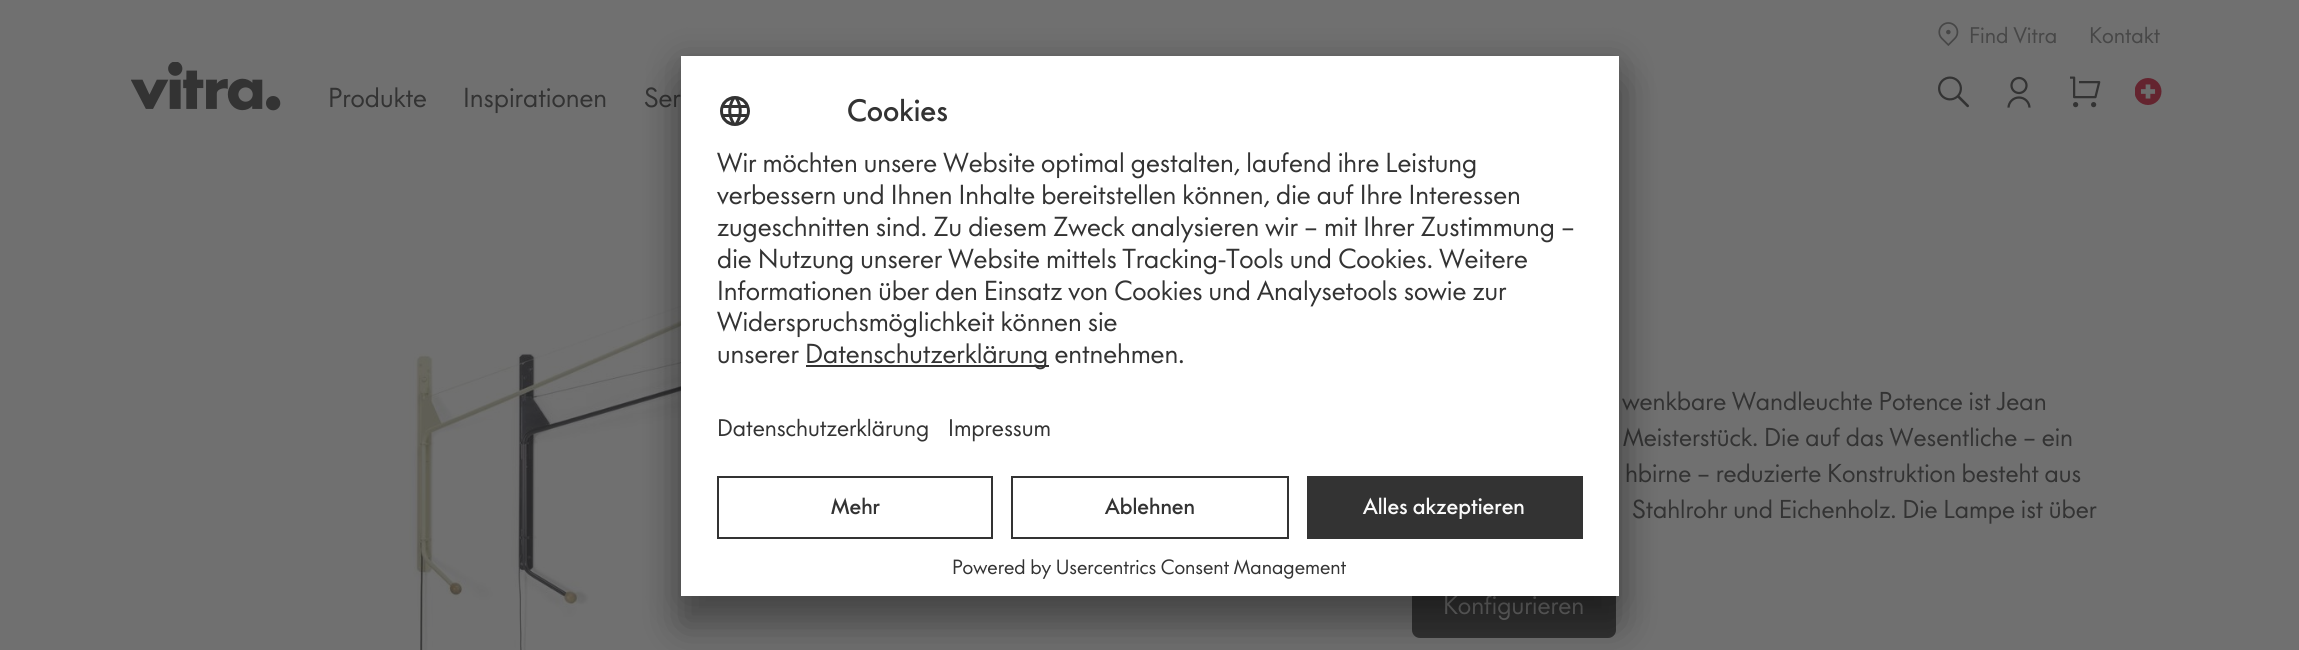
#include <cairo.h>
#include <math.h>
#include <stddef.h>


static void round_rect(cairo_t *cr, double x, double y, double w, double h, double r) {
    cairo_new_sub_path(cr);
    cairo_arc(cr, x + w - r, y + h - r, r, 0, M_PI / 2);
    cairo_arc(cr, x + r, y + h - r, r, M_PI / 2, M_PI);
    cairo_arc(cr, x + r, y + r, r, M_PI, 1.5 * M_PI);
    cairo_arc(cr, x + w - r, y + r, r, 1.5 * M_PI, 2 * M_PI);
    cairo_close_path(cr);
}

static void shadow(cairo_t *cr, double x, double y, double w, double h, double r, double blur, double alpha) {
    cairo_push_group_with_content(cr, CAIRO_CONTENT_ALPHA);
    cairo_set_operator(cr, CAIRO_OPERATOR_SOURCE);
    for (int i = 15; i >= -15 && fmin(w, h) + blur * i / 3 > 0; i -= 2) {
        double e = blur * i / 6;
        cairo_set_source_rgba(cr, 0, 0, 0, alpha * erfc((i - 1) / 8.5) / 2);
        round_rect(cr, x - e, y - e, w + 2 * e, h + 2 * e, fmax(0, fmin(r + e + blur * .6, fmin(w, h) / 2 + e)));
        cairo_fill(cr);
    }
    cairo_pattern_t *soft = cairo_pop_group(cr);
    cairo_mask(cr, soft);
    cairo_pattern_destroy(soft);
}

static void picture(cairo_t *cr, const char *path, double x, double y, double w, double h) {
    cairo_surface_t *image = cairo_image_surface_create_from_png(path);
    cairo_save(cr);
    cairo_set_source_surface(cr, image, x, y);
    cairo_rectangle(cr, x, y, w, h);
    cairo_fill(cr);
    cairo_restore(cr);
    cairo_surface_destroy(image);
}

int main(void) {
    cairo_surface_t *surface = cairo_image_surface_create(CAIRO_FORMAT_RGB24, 2299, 650);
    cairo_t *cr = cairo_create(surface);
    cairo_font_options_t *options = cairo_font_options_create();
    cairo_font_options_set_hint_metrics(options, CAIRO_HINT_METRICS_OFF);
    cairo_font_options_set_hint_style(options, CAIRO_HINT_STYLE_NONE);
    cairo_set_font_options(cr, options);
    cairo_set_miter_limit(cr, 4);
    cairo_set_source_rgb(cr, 0.439, 0.439, 0.439);
    cairo_paint(cr);
    picture(cr, "img1.png", 1938, 22, 21, 24);
    cairo_select_font_face(cr, "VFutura", CAIRO_FONT_SLANT_NORMAL, CAIRO_FONT_WEIGHT_NORMAL);
    cairo_set_font_size(cr, 21);
    cairo_set_source_rgb(cr, 0.278, 0.278, 0.278);
    cairo_move_to(cr, 1969, 43);
    cairo_show_text(cr, "Find Vitra");
    cairo_move_to(cr, 2089, 43);
    cairo_show_text(cr, "Kontakt");
    picture(cr, "img2.png", 1938, 76, 31, 32);
    picture(cr, "img3.png", 2007, 76, 24, 32);
    picture(cr, "img4.png", 2070, 76, 31, 32);
    picture(cr, "img5.png", 2135, 78, 27, 27);
    picture(cr, "img6.png", 131, 62, 150, 49);
    cairo_set_font_size(cr, 25.5);
    cairo_set_source_rgb(cr, 0.2, 0.2, 0.2);
    cairo_move_to(cr, 328, 107);
    cairo_show_text(cr, "Produkte");
    cairo_move_to(cr, 463, 107);
    cairo_show_text(cr, "Inspirationen");
    cairo_move_to(cr, 644, 107);
    cairo_show_text(cr, "Ser");
    picture(cr, "img7.png", 409, 246, 718, 404);
    cairo_set_font_size(cr, 24);
    cairo_move_to(cr, 1622, 410);
    cairo_show_text(cr, "wenkbare Wandleuchte Potence ist Jean");
    cairo_move_to(cr, 1623, 446);
    cairo_show_text(cr, "Meisterstück. Die auf das Wesentliche – ein");
    cairo_move_to(cr, 1625, 482);
    cairo_show_text(cr, "hbirne – reduzierte Konstruktion besteht aus");
    cairo_move_to(cr, 1632, 518);
    cairo_show_text(cr, "Stahlrohr und Eichenholz. Die Lampe ist über");
    round_rect(cr, 1412, 575, 204, 63, 8);
    cairo_fill(cr);
    cairo_set_source_rgb(cr, 0.439, 0.439, 0.439);
    cairo_move_to(cr, 1443, 614);
    cairo_show_text(cr, "Konfigurieren");
    cairo_set_source_rgb(cr, 0, 0, 0);
    shadow(cr, 681, 86, 938, 540, 0, 21, 0.3);
    shadow(cr, 681, 63, 938, 540, 0, 19.5, 0.22);
    cairo_set_source_rgb(cr, 1, 1, 1);
    cairo_rectangle(cr, 681, 56, 938, 540);
    cairo_fill(cr);
    picture(cr, "img8.png", 720, 96, 30, 30);
    cairo_select_font_face(cr, "VFutura Medium", CAIRO_FONT_SLANT_NORMAL, CAIRO_FONT_WEIGHT_NORMAL);
    cairo_set_font_size(cr, 28.5);
    cairo_set_source_rgb(cr, 0.2, 0.2, 0.2);
    cairo_move_to(cr, 847, 121);
    cairo_show_text(cr, "Cookies");
    cairo_select_font_face(cr, "VFutura", CAIRO_FONT_SLANT_NORMAL, CAIRO_FONT_WEIGHT_NORMAL);
    cairo_set_font_size(cr, 25.5);
    cairo_move_to(cr, 717, 172);
    cairo_show_text(cr, "Wir möchten unsere Website optimal gestalten, laufend ihre Leistung");
    cairo_move_to(cr, 717, 204);
    cairo_show_text(cr, "verbessern und Ihnen Inhalte bereitstellen können, die auf Ihre Interessen");
    cairo_move_to(cr, 717, 236);
    cairo_show_text(cr, "zugeschnitten sind. Zu diesem Zweck analysieren wir – mit Ihrer Zustimmung –");
    cairo_move_to(cr, 717, 268);
    cairo_show_text(cr, "die Nutzung unserer Website mittels Tracking-Tools und Cookies. Weitere");
    cairo_move_to(cr, 717, 300);
    cairo_show_text(cr, "Informationen über den Einsatz von Cookies und Analysetools sowie zur");
    cairo_move_to(cr, 717, 331);
    cairo_show_text(cr, "Widerspruchsmöglichkeit können sie");
    cairo_move_to(cr, 717, 363);
    cairo_show_text(cr, "unserer");
    cairo_rectangle(cr, 806, 365, 243, 2);
    cairo_fill(cr);
    cairo_move_to(cr, 805, 363);
    cairo_show_text(cr, "Datenschutzerklärung entnehmen.");
    cairo_set_font_size(cr, 22.25);
    cairo_move_to(cr, 717, 436);
    cairo_show_text(cr, "Datenschutzerklärung");
    cairo_move_to(cr, 948, 436);
    cairo_show_text(cr, "Impressum");
    cairo_rectangle(cr, 718, 477, 274, 61);
    cairo_stroke(cr);
    cairo_select_font_face(cr, "VFutura Medium", CAIRO_FONT_SLANT_NORMAL, CAIRO_FONT_WEIGHT_NORMAL);
    cairo_set_font_size(cr, 21);
    cairo_move_to(cr, 831, 514);
    cairo_show_text(cr, "Mehr");
    cairo_rectangle(cr, 1012, 477, 276, 61);
    cairo_stroke(cr);
    cairo_move_to(cr, 1105, 514);
    cairo_show_text(cr, "Ablehnen");
    cairo_rectangle(cr, 1307, 476, 276, 63);
    cairo_fill(cr);
    cairo_set_source_rgb(cr, 0.98, 0.98, 0.98);
    cairo_move_to(cr, 1363, 514);
    cairo_show_text(cr, "Alles akzeptieren");
    cairo_select_font_face(cr, "VFutura", CAIRO_FONT_SLANT_NORMAL, CAIRO_FONT_WEIGHT_NORMAL);
    cairo_set_font_size(cr, 19.1);
    cairo_set_source_rgb(cr, 0.2, 0.2, 0.2);
    cairo_move_to(cr, 952, 574);
    cairo_show_text(cr, "Powered by Usercentrics Consent Management");
    cairo_surface_write_to_png(surface, "page.png");
    cairo_font_options_destroy(options);
    cairo_destroy(cr);
    cairo_surface_destroy(surface);
    return 0;
}
